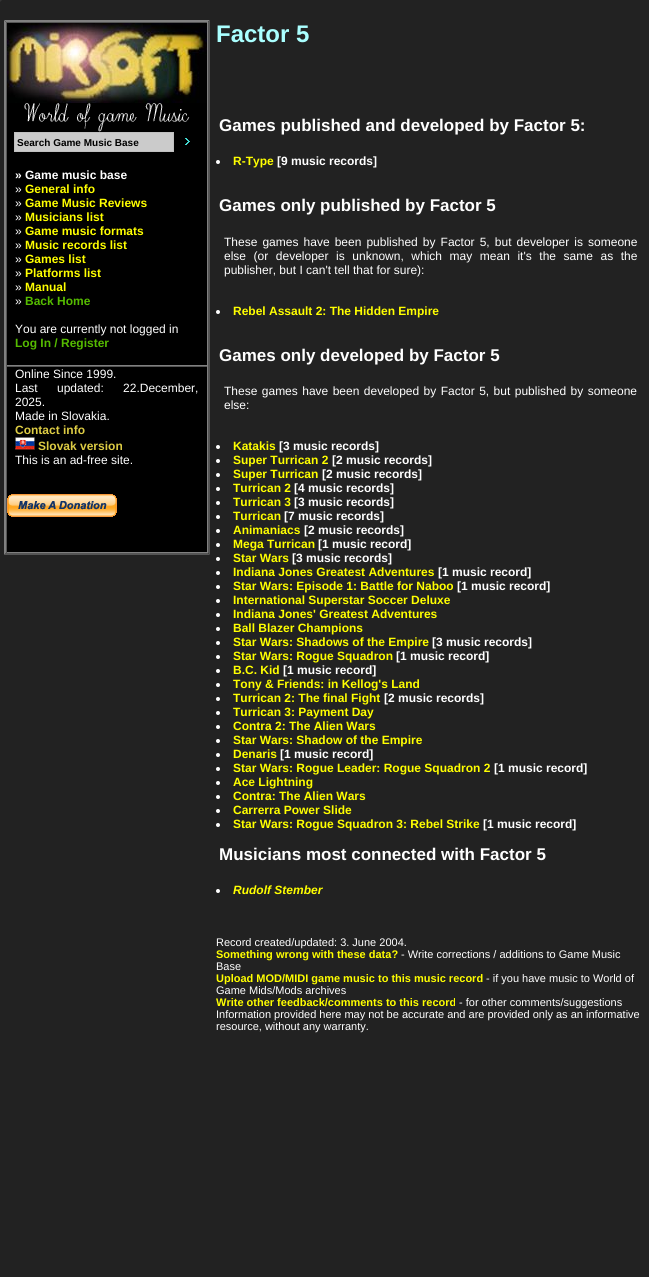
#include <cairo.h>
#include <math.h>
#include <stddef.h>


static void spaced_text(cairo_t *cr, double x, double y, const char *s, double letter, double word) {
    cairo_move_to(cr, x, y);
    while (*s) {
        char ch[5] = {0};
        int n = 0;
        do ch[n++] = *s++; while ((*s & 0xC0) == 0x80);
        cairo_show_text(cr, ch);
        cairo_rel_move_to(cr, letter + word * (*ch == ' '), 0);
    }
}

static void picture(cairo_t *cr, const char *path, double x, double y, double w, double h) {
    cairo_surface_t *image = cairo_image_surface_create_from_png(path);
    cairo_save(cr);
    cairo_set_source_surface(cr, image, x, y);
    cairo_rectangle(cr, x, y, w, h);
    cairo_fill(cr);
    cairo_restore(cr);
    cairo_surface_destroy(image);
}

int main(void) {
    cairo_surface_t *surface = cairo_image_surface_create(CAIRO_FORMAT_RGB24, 649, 1277);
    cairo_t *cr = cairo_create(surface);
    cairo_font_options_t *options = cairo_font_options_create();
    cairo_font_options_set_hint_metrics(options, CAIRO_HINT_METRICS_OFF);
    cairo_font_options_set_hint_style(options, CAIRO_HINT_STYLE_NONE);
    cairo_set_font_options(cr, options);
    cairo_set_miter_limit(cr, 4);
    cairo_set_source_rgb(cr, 0.133, 0.133, 0.133);
    cairo_paint(cr);
    cairo_set_source_rgb(cr, 0.204, 0.204, 0.204);
    cairo_new_path(cr);
    cairo_move_to(cr, 0, 2);
    cairo_line_to(cr, 0, -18);
    cairo_line_to(cr, 2, -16);
    cairo_line_to(cr, 2, 0);
    cairo_close_path(cr);
    cairo_fill(cr);
    cairo_set_source_rgb(cr, 0, 0, 0);
    cairo_rectangle(cr, 4, 20, 206, 535);
    cairo_fill(cr);
    cairo_set_source_rgb(cr, 0.502, 0.502, 0.502);
    cairo_new_path(cr);
    cairo_move_to(cr, 4, 20);
    cairo_line_to(cr, 210, 20);
    cairo_line_to(cr, 208, 22);
    cairo_line_to(cr, 6, 22);
    cairo_close_path(cr);
    cairo_fill(cr);
    cairo_set_source_rgb(cr, 0.333, 0.333, 0.333);
    cairo_new_path(cr);
    cairo_move_to(cr, 210, 20);
    cairo_line_to(cr, 210, 555);
    cairo_line_to(cr, 208, 553);
    cairo_line_to(cr, 208, 22);
    cairo_close_path(cr);
    cairo_fill(cr);
    cairo_new_path(cr);
    cairo_move_to(cr, 210, 555);
    cairo_line_to(cr, 4, 555);
    cairo_line_to(cr, 6, 553);
    cairo_line_to(cr, 208, 553);
    cairo_close_path(cr);
    cairo_fill(cr);
    cairo_set_source_rgb(cr, 0.502, 0.502, 0.502);
    cairo_new_path(cr);
    cairo_move_to(cr, 4, 555);
    cairo_line_to(cr, 4, 20);
    cairo_line_to(cr, 6, 22);
    cairo_line_to(cr, 6, 553);
    cairo_close_path(cr);
    cairo_fill(cr);
    cairo_set_source_rgb(cr, 0.333, 0.333, 0.333);
    cairo_rectangle(cr, 6, 22, 202, 1);
    cairo_fill(cr);
    cairo_set_source_rgb(cr, 0.502, 0.502, 0.502);
    cairo_rectangle(cr, 207, 22, 1, 344);
    cairo_fill(cr);
    cairo_rectangle(cr, 6, 365, 202, 1);
    cairo_fill(cr);
    cairo_set_source_rgb(cr, 0.333, 0.333, 0.333);
    cairo_rectangle(cr, 6, 22, 1, 344);
    cairo_fill(cr);
    picture(cr, "img1.png", 7, 23, 200, 80);
    picture(cr, "img2.png", 24, 103, 166, 29);
    cairo_set_source_rgb(cr, 0.796, 0.796, 0.796);
    cairo_rectangle(cr, 14.5, 132.5, 159, 19);
    cairo_fill_preserve(cr);
    cairo_set_source_rgb(cr, 0.753, 0.753, 0.753);
    cairo_set_line_width(cr, 1);
    cairo_stroke(cr);
    cairo_select_font_face(cr, "Liberation Sans", CAIRO_FONT_SLANT_NORMAL, CAIRO_FONT_WEIGHT_BOLD);
    cairo_set_font_size(cr, 10);
    cairo_set_source_rgb(cr, 0, 0, 0);
    cairo_move_to(cr, 17, 146);
    cairo_show_text(cr, "Search Game Music Base");
    picture(cr, "img3.png", 185, 138, 5, 7);
    cairo_set_font_size(cr, 12);
    cairo_set_source_rgb(cr, 1, 1, 1);
    cairo_move_to(cr, 15, 179);
    cairo_show_text(cr, "» Game music base");
    cairo_select_font_face(cr, "Liberation Sans", CAIRO_FONT_SLANT_NORMAL, CAIRO_FONT_WEIGHT_NORMAL);
    cairo_move_to(cr, 15, 193);
    cairo_show_text(cr, "»");
    cairo_select_font_face(cr, "Liberation Sans", CAIRO_FONT_SLANT_NORMAL, CAIRO_FONT_WEIGHT_BOLD);
    cairo_set_source_rgb(cr, 1, 1, 0);
    cairo_move_to(cr, 25, 193);
    cairo_show_text(cr, "General info");
    cairo_select_font_face(cr, "Liberation Sans", CAIRO_FONT_SLANT_NORMAL, CAIRO_FONT_WEIGHT_NORMAL);
    cairo_set_source_rgb(cr, 1, 1, 1);
    cairo_move_to(cr, 15, 207);
    cairo_show_text(cr, "»");
    cairo_select_font_face(cr, "Liberation Sans", CAIRO_FONT_SLANT_NORMAL, CAIRO_FONT_WEIGHT_BOLD);
    cairo_set_source_rgb(cr, 1, 1, 0);
    cairo_move_to(cr, 25, 207);
    cairo_show_text(cr, "Game Music Reviews");
    cairo_select_font_face(cr, "Liberation Sans", CAIRO_FONT_SLANT_NORMAL, CAIRO_FONT_WEIGHT_NORMAL);
    cairo_set_source_rgb(cr, 1, 1, 1);
    cairo_move_to(cr, 15, 221);
    cairo_show_text(cr, "»");
    cairo_select_font_face(cr, "Liberation Sans", CAIRO_FONT_SLANT_NORMAL, CAIRO_FONT_WEIGHT_BOLD);
    cairo_set_source_rgb(cr, 1, 1, 0);
    cairo_move_to(cr, 25, 221);
    cairo_show_text(cr, "Musicians list");
    cairo_select_font_face(cr, "Liberation Sans", CAIRO_FONT_SLANT_NORMAL, CAIRO_FONT_WEIGHT_NORMAL);
    cairo_set_source_rgb(cr, 1, 1, 1);
    cairo_move_to(cr, 15, 235);
    cairo_show_text(cr, "»");
    cairo_select_font_face(cr, "Liberation Sans", CAIRO_FONT_SLANT_NORMAL, CAIRO_FONT_WEIGHT_BOLD);
    cairo_set_source_rgb(cr, 1, 1, 0);
    cairo_move_to(cr, 25, 235);
    cairo_show_text(cr, "Game music formats");
    cairo_select_font_face(cr, "Liberation Sans", CAIRO_FONT_SLANT_NORMAL, CAIRO_FONT_WEIGHT_NORMAL);
    cairo_set_source_rgb(cr, 1, 1, 1);
    cairo_move_to(cr, 15, 249);
    cairo_show_text(cr, "»");
    cairo_select_font_face(cr, "Liberation Sans", CAIRO_FONT_SLANT_NORMAL, CAIRO_FONT_WEIGHT_BOLD);
    cairo_set_source_rgb(cr, 1, 1, 0);
    cairo_move_to(cr, 25, 249);
    cairo_show_text(cr, "Music records list");
    cairo_select_font_face(cr, "Liberation Sans", CAIRO_FONT_SLANT_NORMAL, CAIRO_FONT_WEIGHT_NORMAL);
    cairo_set_source_rgb(cr, 1, 1, 1);
    cairo_move_to(cr, 15, 263);
    cairo_show_text(cr, "»");
    cairo_select_font_face(cr, "Liberation Sans", CAIRO_FONT_SLANT_NORMAL, CAIRO_FONT_WEIGHT_BOLD);
    cairo_set_source_rgb(cr, 1, 1, 0);
    cairo_move_to(cr, 25, 263);
    cairo_show_text(cr, "Games list");
    cairo_select_font_face(cr, "Liberation Sans", CAIRO_FONT_SLANT_NORMAL, CAIRO_FONT_WEIGHT_NORMAL);
    cairo_set_source_rgb(cr, 1, 1, 1);
    cairo_move_to(cr, 15, 277);
    cairo_show_text(cr, "»");
    cairo_select_font_face(cr, "Liberation Sans", CAIRO_FONT_SLANT_NORMAL, CAIRO_FONT_WEIGHT_BOLD);
    cairo_set_source_rgb(cr, 1, 1, 0);
    cairo_move_to(cr, 25, 277);
    cairo_show_text(cr, "Platforms list");
    cairo_select_font_face(cr, "Liberation Sans", CAIRO_FONT_SLANT_NORMAL, CAIRO_FONT_WEIGHT_NORMAL);
    cairo_set_source_rgb(cr, 1, 1, 1);
    cairo_move_to(cr, 15, 291);
    cairo_show_text(cr, "»");
    cairo_select_font_face(cr, "Liberation Sans", CAIRO_FONT_SLANT_NORMAL, CAIRO_FONT_WEIGHT_BOLD);
    cairo_set_source_rgb(cr, 1, 1, 0);
    cairo_move_to(cr, 25, 291);
    cairo_show_text(cr, "Manual");
    cairo_select_font_face(cr, "Liberation Sans", CAIRO_FONT_SLANT_NORMAL, CAIRO_FONT_WEIGHT_NORMAL);
    cairo_set_source_rgb(cr, 1, 1, 1);
    cairo_move_to(cr, 15, 305);
    cairo_show_text(cr, "»");
    cairo_select_font_face(cr, "Liberation Sans", CAIRO_FONT_SLANT_NORMAL, CAIRO_FONT_WEIGHT_BOLD);
    cairo_set_source_rgb(cr, 0.333, 0.733, 0);
    cairo_move_to(cr, 25, 305);
    cairo_show_text(cr, "Back Home");
    cairo_select_font_face(cr, "Liberation Sans", CAIRO_FONT_SLANT_NORMAL, CAIRO_FONT_WEIGHT_NORMAL);
    cairo_set_source_rgb(cr, 1, 1, 1);
    cairo_move_to(cr, 15, 333);
    cairo_show_text(cr, "You are currently not logged in");
    cairo_select_font_face(cr, "Liberation Sans", CAIRO_FONT_SLANT_NORMAL, CAIRO_FONT_WEIGHT_BOLD);
    cairo_set_source_rgb(cr, 0.333, 0.733, 0);
    cairo_move_to(cr, 15, 347);
    cairo_show_text(cr, "Log In / Register");
    cairo_set_source_rgb(cr, 0.333, 0.333, 0.333);
    cairo_rectangle(cr, 6, 366, 202, 1);
    cairo_fill(cr);
    cairo_set_source_rgb(cr, 0.502, 0.502, 0.502);
    cairo_rectangle(cr, 207, 366, 1, 187);
    cairo_fill(cr);
    cairo_rectangle(cr, 6, 552, 202, 1);
    cairo_fill(cr);
    cairo_set_source_rgb(cr, 0.333, 0.333, 0.333);
    cairo_rectangle(cr, 6, 366, 1, 187);
    cairo_fill(cr);
    cairo_select_font_face(cr, "Liberation Sans", CAIRO_FONT_SLANT_NORMAL, CAIRO_FONT_WEIGHT_NORMAL);
    cairo_set_source_rgb(cr, 1, 1, 1);
    cairo_move_to(cr, 15, 378);
    cairo_show_text(cr, "Online Since 1999.");
    spaced_text(cr, 15, 392, "Last updated: 22.December,", 0, 16);
    cairo_move_to(cr, 15, 406);
    cairo_show_text(cr, "2025.");
    cairo_move_to(cr, 15, 420);
    cairo_show_text(cr, "Made in Slovakia.");
    cairo_select_font_face(cr, "Liberation Sans", CAIRO_FONT_SLANT_NORMAL, CAIRO_FONT_WEIGHT_BOLD);
    cairo_set_source_rgb(cr, 0.867, 0.8, 0.267);
    cairo_move_to(cr, 15, 434);
    cairo_show_text(cr, "Contact info");
    picture(cr, "img4.png", 15, 437, 20, 13);
    cairo_move_to(cr, 38, 450);
    cairo_show_text(cr, "Slovak version");
    cairo_select_font_face(cr, "Liberation Sans", CAIRO_FONT_SLANT_NORMAL, CAIRO_FONT_WEIGHT_NORMAL);
    cairo_set_source_rgb(cr, 1, 1, 1);
    cairo_move_to(cr, 15, 464);
    cairo_show_text(cr, "This is an ad-free site.");
    picture(cr, "img5.png", 7, 494, 110, 23);
    cairo_select_font_face(cr, "Liberation Sans", CAIRO_FONT_SLANT_NORMAL, CAIRO_FONT_WEIGHT_BOLD);
    cairo_set_font_size(cr, 24);
    cairo_set_source_rgb(cr, 0.667, 1, 1);
    cairo_move_to(cr, 216, 42);
    cairo_show_text(cr, "Factor 5");
    cairo_set_font_size(cr, 17);
    cairo_set_source_rgb(cr, 1, 1, 1);
    cairo_move_to(cr, 219, 131);
    cairo_show_text(cr, "Games published and developed by Factor 5:");
    cairo_new_path(cr);
    cairo_arc(cr, 218, 162, 2, 0, 2 * M_PI);
    cairo_fill(cr);
    cairo_set_font_size(cr, 12);
    cairo_set_source_rgb(cr, 1, 1, 0);
    cairo_move_to(cr, 233, 165);
    cairo_show_text(cr, "R-Type");
    cairo_set_source_rgb(cr, 1, 1, 1);
    cairo_move_to(cr, 277, 165);
    cairo_show_text(cr, "[9 music records]");
    cairo_set_font_size(cr, 17);
    cairo_move_to(cr, 219, 211);
    cairo_show_text(cr, "Games only published by Factor 5");
    cairo_select_font_face(cr, "Liberation Sans", CAIRO_FONT_SLANT_NORMAL, CAIRO_FONT_WEIGHT_NORMAL);
    cairo_set_font_size(cr, 12);
    spaced_text(cr, 224, 246, "These games have been published by Factor 5, but developer is someone", 0, 1.75);
    spaced_text(cr, 224, 260, "else (or developer is unknown, which may mean it's the same as the", 0, 4.25);
    cairo_move_to(cr, 224, 274);
    cairo_show_text(cr, "publisher, but I can't tell that for sure):");
    cairo_new_path(cr);
    cairo_arc(cr, 218, 312, 2, 0, 2 * M_PI);
    cairo_fill(cr);
    cairo_select_font_face(cr, "Liberation Sans", CAIRO_FONT_SLANT_NORMAL, CAIRO_FONT_WEIGHT_BOLD);
    cairo_set_source_rgb(cr, 1, 1, 0);
    cairo_move_to(cr, 233, 315);
    cairo_show_text(cr, "Rebel Assault 2: The Hidden Empire");
    cairo_set_font_size(cr, 17);
    cairo_set_source_rgb(cr, 1, 1, 1);
    cairo_move_to(cr, 219, 361);
    cairo_show_text(cr, "Games only developed by Factor 5");
    cairo_select_font_face(cr, "Liberation Sans", CAIRO_FONT_SLANT_NORMAL, CAIRO_FONT_WEIGHT_NORMAL);
    cairo_set_font_size(cr, 12);
    spaced_text(cr, 224, 395, "These games have been developed by Factor 5, but published by someone", 0, 1.1);
    cairo_move_to(cr, 224, 409);
    cairo_show_text(cr, "else:");
    cairo_new_path(cr);
    cairo_arc(cr, 218, 447, 2, 0, 2 * M_PI);
    cairo_fill(cr);
    cairo_select_font_face(cr, "Liberation Sans", CAIRO_FONT_SLANT_NORMAL, CAIRO_FONT_WEIGHT_BOLD);
    cairo_set_source_rgb(cr, 1, 1, 0);
    cairo_move_to(cr, 233, 450);
    cairo_show_text(cr, "Katakis");
    cairo_set_source_rgb(cr, 1, 1, 1);
    cairo_move_to(cr, 279, 450);
    cairo_show_text(cr, "[3 music records]");
    cairo_new_path(cr);
    cairo_arc(cr, 218, 461, 2, 0, 2 * M_PI);
    cairo_fill(cr);
    cairo_set_source_rgb(cr, 1, 1, 0);
    cairo_move_to(cr, 233, 464);
    cairo_show_text(cr, "Super Turrican 2");
    cairo_set_source_rgb(cr, 1, 1, 1);
    cairo_move_to(cr, 332, 464);
    cairo_show_text(cr, "[2 music records]");
    cairo_new_path(cr);
    cairo_arc(cr, 218, 475, 2, 0, 2 * M_PI);
    cairo_fill(cr);
    cairo_set_source_rgb(cr, 1, 1, 0);
    cairo_move_to(cr, 233, 478);
    cairo_show_text(cr, "Super Turrican");
    cairo_set_source_rgb(cr, 1, 1, 1);
    cairo_move_to(cr, 322, 478);
    cairo_show_text(cr, "[2 music records]");
    cairo_new_path(cr);
    cairo_arc(cr, 218, 489, 2, 0, 2 * M_PI);
    cairo_fill(cr);
    cairo_set_source_rgb(cr, 1, 1, 0);
    cairo_move_to(cr, 233, 492);
    cairo_show_text(cr, "Turrican 2");
    cairo_set_source_rgb(cr, 1, 1, 1);
    cairo_move_to(cr, 294, 492);
    cairo_show_text(cr, "[4 music records]");
    cairo_new_path(cr);
    cairo_arc(cr, 218, 503, 2, 0, 2 * M_PI);
    cairo_fill(cr);
    cairo_set_source_rgb(cr, 1, 1, 0);
    cairo_move_to(cr, 233, 506);
    cairo_show_text(cr, "Turrican 3");
    cairo_set_source_rgb(cr, 1, 1, 1);
    cairo_move_to(cr, 294, 506);
    cairo_show_text(cr, "[3 music records]");
    cairo_new_path(cr);
    cairo_arc(cr, 218, 517, 2, 0, 2 * M_PI);
    cairo_fill(cr);
    cairo_set_source_rgb(cr, 1, 1, 0);
    cairo_move_to(cr, 233, 520);
    cairo_show_text(cr, "Turrican");
    cairo_set_source_rgb(cr, 1, 1, 1);
    cairo_move_to(cr, 284, 520);
    cairo_show_text(cr, "[7 music records]");
    cairo_new_path(cr);
    cairo_arc(cr, 218, 531, 2, 0, 2 * M_PI);
    cairo_fill(cr);
    cairo_set_source_rgb(cr, 1, 1, 0);
    cairo_move_to(cr, 233, 534);
    cairo_show_text(cr, "Animaniacs");
    cairo_set_source_rgb(cr, 1, 1, 1);
    cairo_move_to(cr, 304, 534);
    cairo_show_text(cr, "[2 music records]");
    cairo_new_path(cr);
    cairo_arc(cr, 218, 545, 2, 0, 2 * M_PI);
    cairo_fill(cr);
    cairo_set_source_rgb(cr, 1, 1, 0);
    cairo_move_to(cr, 233, 548);
    cairo_show_text(cr, "Mega Turrican");
    cairo_set_source_rgb(cr, 1, 1, 1);
    cairo_move_to(cr, 318, 548);
    cairo_show_text(cr, "[1 music record]");
    cairo_new_path(cr);
    cairo_arc(cr, 218, 559, 2, 0, 2 * M_PI);
    cairo_fill(cr);
    cairo_set_source_rgb(cr, 1, 1, 0);
    cairo_move_to(cr, 233, 562);
    cairo_show_text(cr, "Star Wars");
    cairo_set_source_rgb(cr, 1, 1, 1);
    cairo_move_to(cr, 292, 562);
    cairo_show_text(cr, "[3 music records]");
    cairo_new_path(cr);
    cairo_arc(cr, 218, 573, 2, 0, 2 * M_PI);
    cairo_fill(cr);
    cairo_set_source_rgb(cr, 1, 1, 0);
    cairo_move_to(cr, 233, 576);
    cairo_show_text(cr, "Indiana Jones Greatest Adventures");
    cairo_set_source_rgb(cr, 1, 1, 1);
    cairo_move_to(cr, 438, 576);
    cairo_show_text(cr, "[1 music record]");
    cairo_new_path(cr);
    cairo_arc(cr, 218, 587, 2, 0, 2 * M_PI);
    cairo_fill(cr);
    cairo_set_source_rgb(cr, 1, 1, 0);
    cairo_move_to(cr, 233, 590);
    cairo_show_text(cr, "Star Wars: Episode 1: Battle for Naboo");
    cairo_set_source_rgb(cr, 1, 1, 1);
    cairo_move_to(cr, 457, 590);
    cairo_show_text(cr, "[1 music record]");
    cairo_new_path(cr);
    cairo_arc(cr, 218, 601, 2, 0, 2 * M_PI);
    cairo_fill(cr);
    cairo_set_source_rgb(cr, 1, 1, 0);
    cairo_move_to(cr, 233, 604);
    cairo_show_text(cr, "International Superstar Soccer Deluxe");
    cairo_set_source_rgb(cr, 1, 1, 1);
    cairo_new_path(cr);
    cairo_arc(cr, 218, 615, 2, 0, 2 * M_PI);
    cairo_fill(cr);
    cairo_set_source_rgb(cr, 1, 1, 0);
    cairo_move_to(cr, 233, 618);
    cairo_show_text(cr, "Indiana Jones' Greatest Adventures");
    cairo_set_source_rgb(cr, 1, 1, 1);
    cairo_new_path(cr);
    cairo_arc(cr, 218, 629, 2, 0, 2 * M_PI);
    cairo_fill(cr);
    cairo_set_source_rgb(cr, 1, 1, 0);
    cairo_move_to(cr, 233, 632);
    cairo_show_text(cr, "Ball Blazer Champions");
    cairo_set_source_rgb(cr, 1, 1, 1);
    cairo_new_path(cr);
    cairo_arc(cr, 218, 643, 2, 0, 2 * M_PI);
    cairo_fill(cr);
    cairo_set_source_rgb(cr, 1, 1, 0);
    cairo_move_to(cr, 233, 646);
    cairo_show_text(cr, "Star Wars: Shadows of the Empire");
    cairo_set_source_rgb(cr, 1, 1, 1);
    cairo_move_to(cr, 432, 646);
    cairo_show_text(cr, "[3 music records]");
    cairo_new_path(cr);
    cairo_arc(cr, 218, 657, 2, 0, 2 * M_PI);
    cairo_fill(cr);
    cairo_set_source_rgb(cr, 1, 1, 0);
    cairo_move_to(cr, 233, 660);
    cairo_show_text(cr, "Star Wars: Rogue Squadron");
    cairo_set_source_rgb(cr, 1, 1, 1);
    cairo_move_to(cr, 396, 660);
    cairo_show_text(cr, "[1 music record]");
    cairo_new_path(cr);
    cairo_arc(cr, 218, 671, 2, 0, 2 * M_PI);
    cairo_fill(cr);
    cairo_set_source_rgb(cr, 1, 1, 0);
    cairo_move_to(cr, 233, 674);
    cairo_show_text(cr, "B.C. Kid");
    cairo_set_source_rgb(cr, 1, 1, 1);
    cairo_move_to(cr, 283, 674);
    cairo_show_text(cr, "[1 music record]");
    cairo_new_path(cr);
    cairo_arc(cr, 218, 685, 2, 0, 2 * M_PI);
    cairo_fill(cr);
    cairo_set_source_rgb(cr, 1, 1, 0);
    cairo_move_to(cr, 233, 688);
    cairo_show_text(cr, "Tony & Friends: in Kellog's Land");
    cairo_set_source_rgb(cr, 1, 1, 1);
    cairo_new_path(cr);
    cairo_arc(cr, 218, 699, 2, 0, 2 * M_PI);
    cairo_fill(cr);
    cairo_set_source_rgb(cr, 1, 1, 0);
    cairo_move_to(cr, 233, 702);
    cairo_show_text(cr, "Turrican 2: The final Fight");
    cairo_set_source_rgb(cr, 1, 1, 1);
    cairo_move_to(cr, 384, 702);
    cairo_show_text(cr, "[2 music records]");
    cairo_new_path(cr);
    cairo_arc(cr, 218, 713, 2, 0, 2 * M_PI);
    cairo_fill(cr);
    cairo_set_source_rgb(cr, 1, 1, 0);
    cairo_move_to(cr, 233, 716);
    cairo_show_text(cr, "Turrican 3: Payment Day");
    cairo_set_source_rgb(cr, 1, 1, 1);
    cairo_new_path(cr);
    cairo_arc(cr, 218, 727, 2, 0, 2 * M_PI);
    cairo_fill(cr);
    cairo_set_source_rgb(cr, 1, 1, 0);
    cairo_move_to(cr, 233, 730);
    cairo_show_text(cr, "Contra 2: The Alien Wars");
    cairo_set_source_rgb(cr, 1, 1, 1);
    cairo_new_path(cr);
    cairo_arc(cr, 218, 741, 2, 0, 2 * M_PI);
    cairo_fill(cr);
    cairo_set_source_rgb(cr, 1, 1, 0);
    cairo_move_to(cr, 233, 744);
    cairo_show_text(cr, "Star Wars: Shadow of the Empire");
    cairo_set_source_rgb(cr, 1, 1, 1);
    cairo_new_path(cr);
    cairo_arc(cr, 218, 755, 2, 0, 2 * M_PI);
    cairo_fill(cr);
    cairo_set_source_rgb(cr, 1, 1, 0);
    cairo_move_to(cr, 233, 758);
    cairo_show_text(cr, "Denaris");
    cairo_set_source_rgb(cr, 1, 1, 1);
    cairo_move_to(cr, 280, 758);
    cairo_show_text(cr, "[1 music record]");
    cairo_new_path(cr);
    cairo_arc(cr, 218, 769, 2, 0, 2 * M_PI);
    cairo_fill(cr);
    cairo_set_source_rgb(cr, 1, 1, 0);
    cairo_move_to(cr, 233, 772);
    cairo_show_text(cr, "Star Wars: Rogue Leader: Rogue Squadron 2");
    cairo_set_source_rgb(cr, 1, 1, 1);
    cairo_move_to(cr, 494, 772);
    cairo_show_text(cr, "[1 music record]");
    cairo_new_path(cr);
    cairo_arc(cr, 218, 783, 2, 0, 2 * M_PI);
    cairo_fill(cr);
    cairo_set_source_rgb(cr, 1, 1, 0);
    cairo_move_to(cr, 233, 786);
    cairo_show_text(cr, "Ace Lightning");
    cairo_set_source_rgb(cr, 1, 1, 1);
    cairo_new_path(cr);
    cairo_arc(cr, 218, 797, 2, 0, 2 * M_PI);
    cairo_fill(cr);
    cairo_set_source_rgb(cr, 1, 1, 0);
    cairo_move_to(cr, 233, 800);
    cairo_show_text(cr, "Contra: The Alien Wars");
    cairo_set_source_rgb(cr, 1, 1, 1);
    cairo_new_path(cr);
    cairo_arc(cr, 218, 811, 2, 0, 2 * M_PI);
    cairo_fill(cr);
    cairo_set_source_rgb(cr, 1, 1, 0);
    cairo_move_to(cr, 233, 814);
    cairo_show_text(cr, "Carrerra Power Slide");
    cairo_set_source_rgb(cr, 1, 1, 1);
    cairo_new_path(cr);
    cairo_arc(cr, 218, 825, 2, 0, 2 * M_PI);
    cairo_fill(cr);
    cairo_set_source_rgb(cr, 1, 1, 0);
    cairo_move_to(cr, 233, 828);
    cairo_show_text(cr, "Star Wars: Rogue Squadron 3: Rebel Strike");
    cairo_set_source_rgb(cr, 1, 1, 1);
    cairo_move_to(cr, 483, 828);
    cairo_show_text(cr, "[1 music record]");
    cairo_set_font_size(cr, 17);
    cairo_move_to(cr, 219, 860);
    cairo_show_text(cr, "Musicians most connected with Factor 5");
    cairo_new_path(cr);
    cairo_arc(cr, 218, 891, 2, 0, 2 * M_PI);
    cairo_fill(cr);
    cairo_select_font_face(cr, "Liberation Sans", CAIRO_FONT_SLANT_ITALIC, CAIRO_FONT_WEIGHT_BOLD);
    cairo_set_font_size(cr, 12);
    cairo_set_source_rgb(cr, 1, 1, 0);
    cairo_move_to(cr, 233, 894);
    cairo_show_text(cr, "Rudolf Stember");
    cairo_select_font_face(cr, "Liberation Sans", CAIRO_FONT_SLANT_NORMAL, CAIRO_FONT_WEIGHT_NORMAL);
    cairo_set_font_size(cr, 11);
    cairo_set_source_rgb(cr, 1, 1, 1);
    cairo_move_to(cr, 216, 946);
    cairo_show_text(cr, "Record created/updated: 3. June 2004.");
    cairo_select_font_face(cr, "Liberation Sans", CAIRO_FONT_SLANT_NORMAL, CAIRO_FONT_WEIGHT_BOLD);
    cairo_set_source_rgb(cr, 1, 1, 0);
    cairo_move_to(cr, 216, 958);
    cairo_show_text(cr, "Something wrong with these data?");
    cairo_select_font_face(cr, "Liberation Sans", CAIRO_FONT_SLANT_NORMAL, CAIRO_FONT_WEIGHT_NORMAL);
    cairo_set_source_rgb(cr, 1, 1, 1);
    cairo_move_to(cr, 401, 958);
    cairo_show_text(cr, "- Write corrections / additions to Game Music");
    cairo_move_to(cr, 216, 970);
    cairo_show_text(cr, "Base");
    cairo_select_font_face(cr, "Liberation Sans", CAIRO_FONT_SLANT_NORMAL, CAIRO_FONT_WEIGHT_BOLD);
    cairo_set_source_rgb(cr, 1, 1, 0);
    cairo_move_to(cr, 216, 982);
    cairo_show_text(cr, "Upload MOD/MIDI game music to this music record");
    cairo_select_font_face(cr, "Liberation Sans", CAIRO_FONT_SLANT_NORMAL, CAIRO_FONT_WEIGHT_NORMAL);
    cairo_set_source_rgb(cr, 1, 1, 1);
    cairo_move_to(cr, 486, 982);
    cairo_show_text(cr, "- if you have music to World of");
    cairo_move_to(cr, 216, 994);
    cairo_show_text(cr, "Game Mids/Mods archives");
    cairo_select_font_face(cr, "Liberation Sans", CAIRO_FONT_SLANT_NORMAL, CAIRO_FONT_WEIGHT_BOLD);
    cairo_set_source_rgb(cr, 1, 1, 0);
    cairo_move_to(cr, 216, 1006);
    cairo_show_text(cr, "Write other feedback/comments to this record");
    cairo_select_font_face(cr, "Liberation Sans", CAIRO_FONT_SLANT_NORMAL, CAIRO_FONT_WEIGHT_NORMAL);
    cairo_set_source_rgb(cr, 1, 1, 1);
    cairo_move_to(cr, 459, 1006);
    cairo_show_text(cr, "- for other comments/suggestions");
    cairo_move_to(cr, 216, 1018);
    cairo_show_text(cr, "Information provided here may not be accurate and are provided only as an informative");
    cairo_move_to(cr, 216, 1030);
    cairo_show_text(cr, "resource, without any warranty.");
    cairo_surface_write_to_png(surface, "page.png");
    cairo_font_options_destroy(options);
    cairo_destroy(cr);
    cairo_surface_destroy(surface);
    return 0;
}
